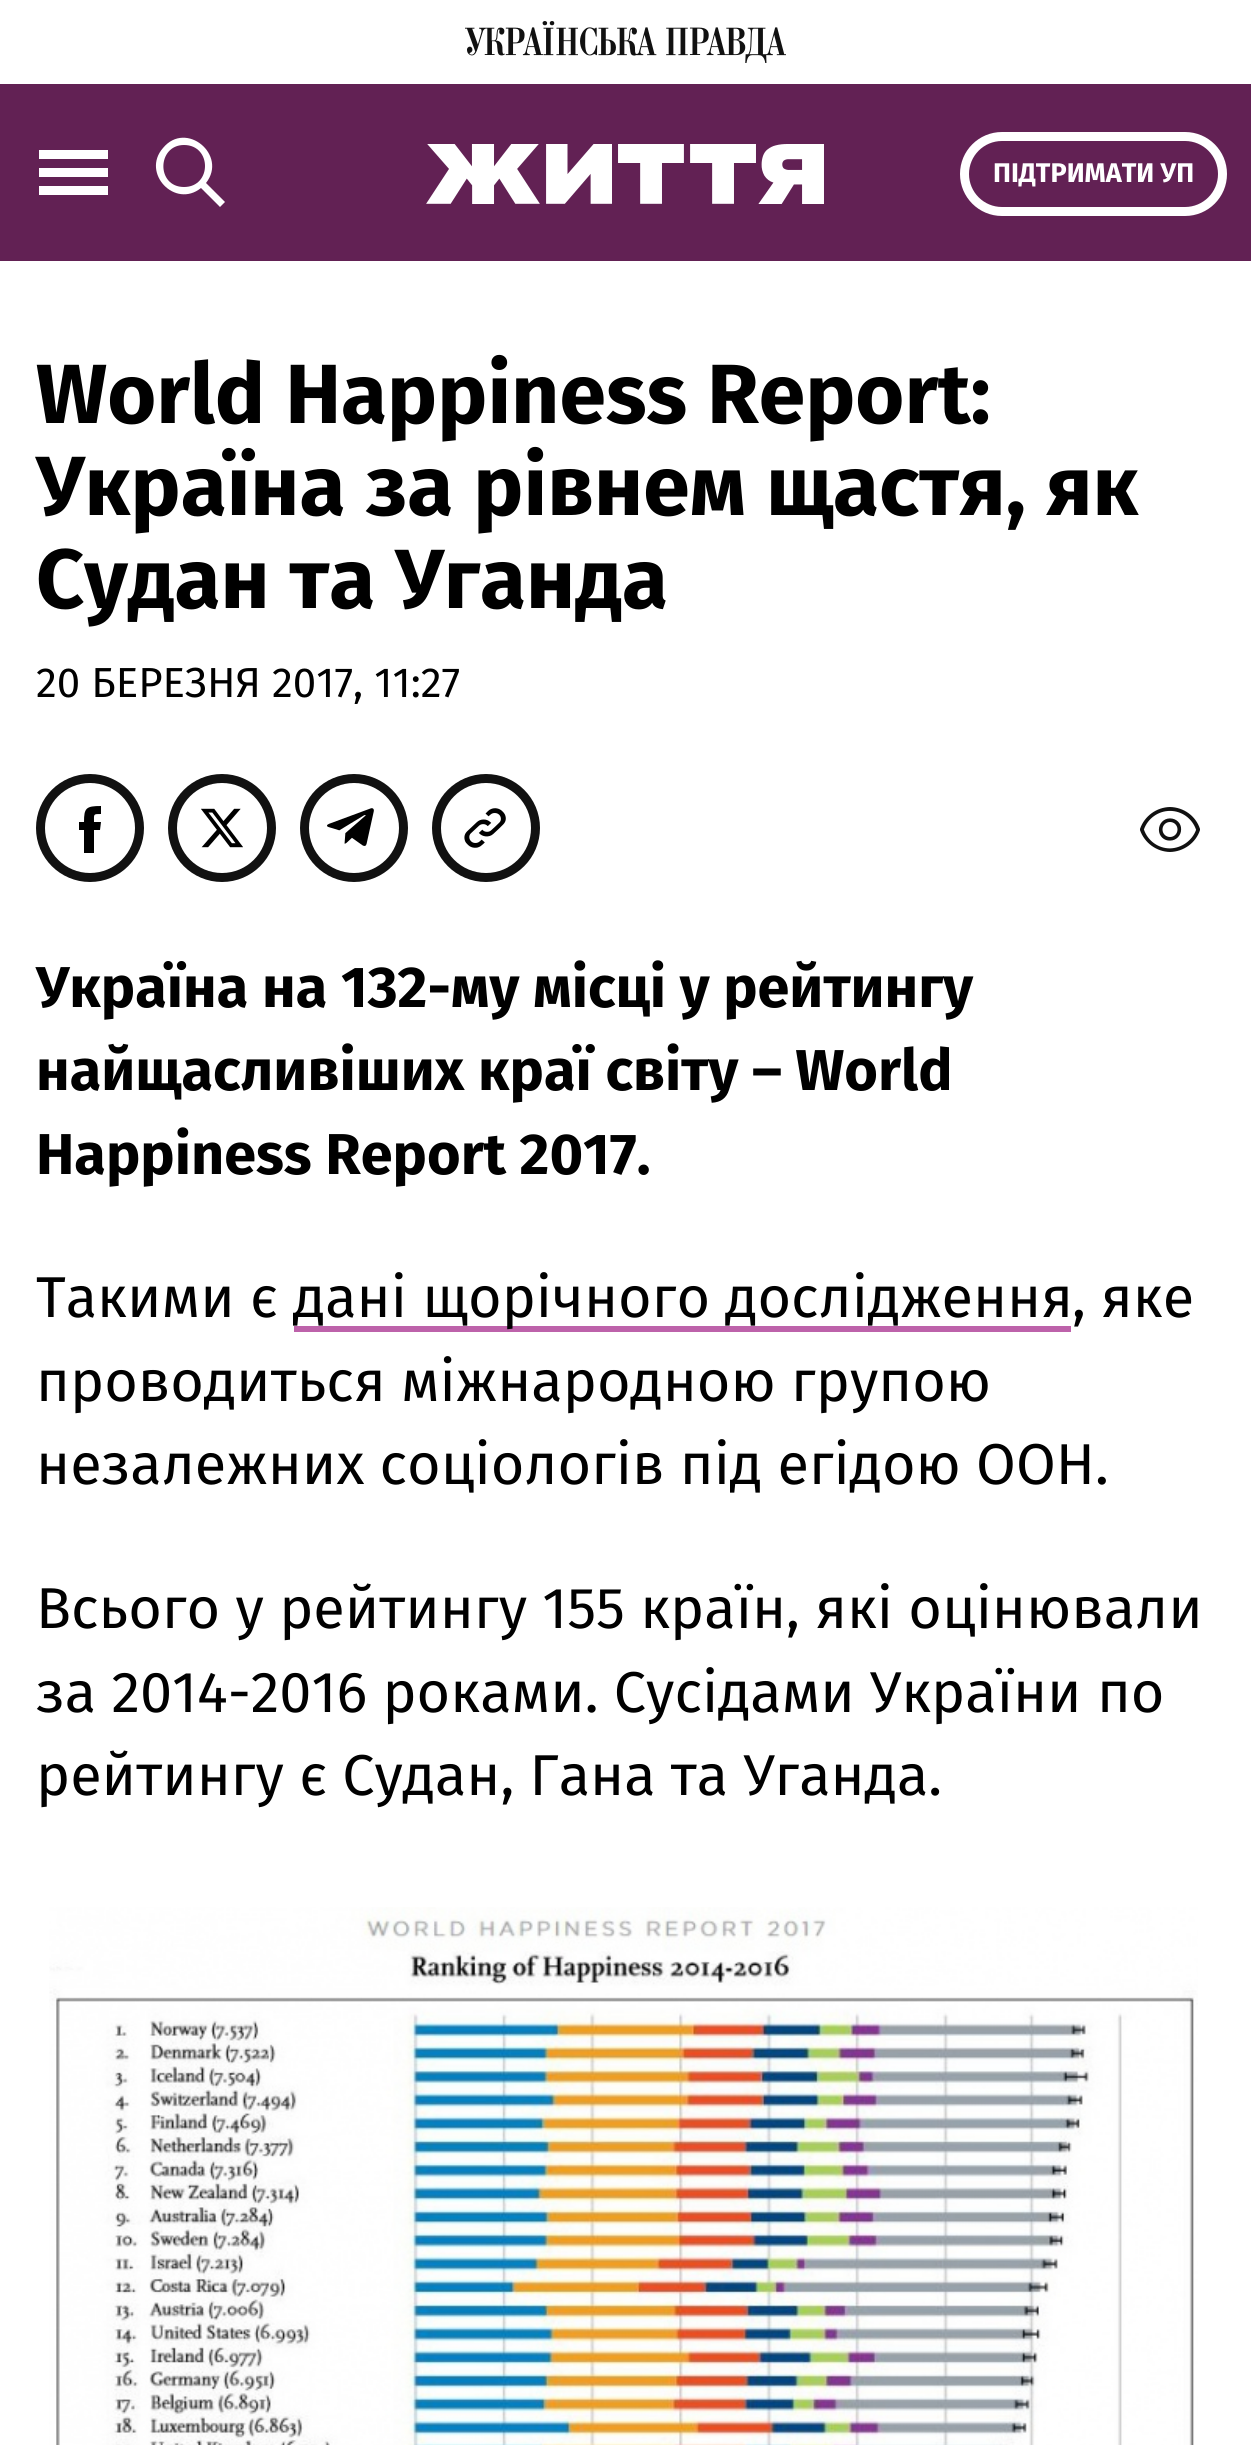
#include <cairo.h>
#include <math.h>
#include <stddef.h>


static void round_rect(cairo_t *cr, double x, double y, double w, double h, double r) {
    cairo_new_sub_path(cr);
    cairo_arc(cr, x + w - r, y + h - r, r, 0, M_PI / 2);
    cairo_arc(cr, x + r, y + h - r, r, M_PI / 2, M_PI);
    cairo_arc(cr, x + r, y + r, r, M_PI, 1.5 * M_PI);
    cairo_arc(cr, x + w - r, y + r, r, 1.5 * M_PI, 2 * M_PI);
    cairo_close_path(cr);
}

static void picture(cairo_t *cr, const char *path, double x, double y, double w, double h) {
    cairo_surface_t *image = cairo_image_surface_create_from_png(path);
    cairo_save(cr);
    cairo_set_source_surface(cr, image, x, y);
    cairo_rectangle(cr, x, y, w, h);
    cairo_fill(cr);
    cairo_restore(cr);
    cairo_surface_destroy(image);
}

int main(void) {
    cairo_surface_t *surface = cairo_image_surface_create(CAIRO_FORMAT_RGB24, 1251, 2445);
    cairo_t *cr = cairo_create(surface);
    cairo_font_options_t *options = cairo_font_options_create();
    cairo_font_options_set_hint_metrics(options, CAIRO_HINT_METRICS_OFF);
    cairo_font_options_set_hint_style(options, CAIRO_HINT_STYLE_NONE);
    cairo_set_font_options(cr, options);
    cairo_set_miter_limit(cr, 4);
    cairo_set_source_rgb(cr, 1, 1, 1);
    cairo_paint(cr);
    picture(cr, "img1.png", 465, 21, 321, 42);
    cairo_set_source_rgb(cr, 0.384, 0.129, 0.329);
    cairo_rectangle(cr, 0, 84, 1251, 177);
    cairo_fill(cr);
    cairo_set_source_rgb(cr, 1, 1, 1);
    cairo_rectangle(cr, 39, 150, 69, 9);
    cairo_fill(cr);
    cairo_rectangle(cr, 39, 168, 69, 9);
    cairo_fill(cr);
    cairo_rectangle(cr, 39, 186, 69, 9);
    cairo_fill(cr);
    cairo_new_path(cr);
    cairo_move_to(cr, 201, 188);
    cairo_curve_to(cr, 175, 209, 141, 173, 163, 148);
    cairo_curve_to(cr, 186, 120, 228, 155, 206, 183);
    cairo_line_to(cr, 225, 202);
    cairo_line_to(cr, 220, 207);
    cairo_close_path(cr);
    cairo_move_to(cr, 184, 187);
    cairo_curve_to(cr, 212, 187, 212, 145, 184, 145);
    cairo_curve_to(cr, 157, 145, 156, 187, 184, 187);
    cairo_close_path(cr);
    cairo_fill(cr);
    picture(cr, "img2.png", 426, 144, 398, 60);
    round_rect(cr, 964.5, 136.5, 258, 75, 37.5);
    cairo_set_line_width(cr, 9);
    cairo_stroke(cr);
    cairo_select_font_face(cr, "Fira Sans", CAIRO_FONT_SLANT_NORMAL, CAIRO_FONT_WEIGHT_BOLD);
    cairo_set_font_size(cr, 27);
    cairo_move_to(cr, 993, 182);
    cairo_show_text(cr, "ПІДТРИМАТИ УП");
    cairo_set_font_size(cr, 84);
    cairo_set_source_rgb(cr, 0, 0, 0);
    cairo_move_to(cr, 36, 423);
    cairo_show_text(cr, "World Happiness Report:");
    cairo_move_to(cr, 36, 515);
    cairo_show_text(cr, "Україна за рівнем щастя, як");
    cairo_move_to(cr, 36, 608);
    cairo_show_text(cr, "Судан та Уганда");
    cairo_select_font_face(cr, "Fira Sans", CAIRO_FONT_SLANT_NORMAL, CAIRO_FONT_WEIGHT_NORMAL);
    cairo_set_font_size(cr, 42);
    cairo_move_to(cr, 36, 697);
    cairo_show_text(cr, "20 БЕРЕЗНЯ 2017, 11:27");
    cairo_new_path(cr);
    cairo_arc(cr, 90, 828, 49.5, 0, 2 * M_PI);
    cairo_set_source_rgb(cr, 0.067, 0.067, 0.067);
    cairo_stroke(cr);
    cairo_set_source_rgb(cr, 0, 0, 0);
    cairo_new_path(cr);
    cairo_move_to(cr, 94, 822);
    cairo_curve_to(cr, 94, 814, 93, 814, 101, 814);
    cairo_line_to(cr, 101, 806);
    cairo_curve_to(cr, 86, 806, 84, 808, 84, 822);
    cairo_line_to(cr, 79, 822);
    cairo_line_to(cr, 79, 830);
    cairo_line_to(cr, 84, 830);
    cairo_line_to(cr, 84, 853);
    cairo_line_to(cr, 94, 853);
    cairo_line_to(cr, 94, 830);
    cairo_line_to(cr, 100, 830);
    cairo_line_to(cr, 101, 822);
    cairo_close_path(cr);
    cairo_fill(cr);
    cairo_arc(cr, 222, 828, 49.5, 0, 2 * M_PI);
    cairo_set_source_rgb(cr, 0.067, 0.067, 0.067);
    cairo_stroke(cr);
    picture(cr, "img3.png", 201, 808, 42, 40);
    cairo_arc(cr, 354, 828, 49.5, 0, 2 * M_PI);
    cairo_stroke(cr);
    picture(cr, "img4.png", 327, 808, 47, 38);
    cairo_arc(cr, 486, 828, 49.5, 0, 2 * M_PI);
    cairo_stroke(cr);
    picture(cr, "img5.png", 464, 808, 42, 40);
    picture(cr, "img6.png", 1140, 807, 60, 45);
    cairo_select_font_face(cr, "Fira Sans", CAIRO_FONT_SLANT_NORMAL, CAIRO_FONT_WEIGHT_BOLD);
    cairo_set_font_size(cr, 57.6);
    cairo_set_source_rgb(cr, 0, 0, 0);
    cairo_move_to(cr, 36, 1007);
    cairo_show_text(cr, "Україна на 132-му місці у рейтингу");
    cairo_move_to(cr, 36, 1090);
    cairo_show_text(cr, "найщасливіших краї світу – World");
    cairo_move_to(cr, 36, 1174);
    cairo_show_text(cr, "Happiness Report 2017.");
    cairo_select_font_face(cr, "Fira Sans", CAIRO_FONT_SLANT_NORMAL, CAIRO_FONT_WEIGHT_NORMAL);
    cairo_move_to(cr, 36, 1317);
    cairo_show_text(cr, "Такими є");
    cairo_set_source_rgb(cr, 0.741, 0.384, 0.667);
    cairo_rectangle(cr, 294, 1326, 777, 6);
    cairo_fill(cr);
    cairo_set_source_rgb(cr, 0, 0, 0);
    cairo_move_to(cr, 293, 1317);
    cairo_show_text(cr, "дані щорічного дослідження");
    cairo_move_to(cr, 1072, 1317);
    cairo_show_text(cr, ", яке");
    cairo_move_to(cr, 36, 1401);
    cairo_show_text(cr, "проводиться міжнародною групою");
    cairo_move_to(cr, 36, 1484);
    cairo_show_text(cr, "незалежних соціологів під егідою ООН.");
    cairo_move_to(cr, 36, 1628);
    cairo_show_text(cr, "Всього у рейтингу 155 країн, які оцінювали");
    cairo_move_to(cr, 36, 1712);
    cairo_show_text(cr, "за 2014-2016 роками. Сусідами України по");
    cairo_move_to(cr, 36, 1795);
    cairo_show_text(cr, "рейтингу є Судан, Гана та Уганда.");
    picture(cr, "img7.png", 49, 1907, 1149, 538);
    cairo_surface_write_to_png(surface, "page.png");
    cairo_font_options_destroy(options);
    cairo_destroy(cr);
    cairo_surface_destroy(surface);
    return 0;
}
